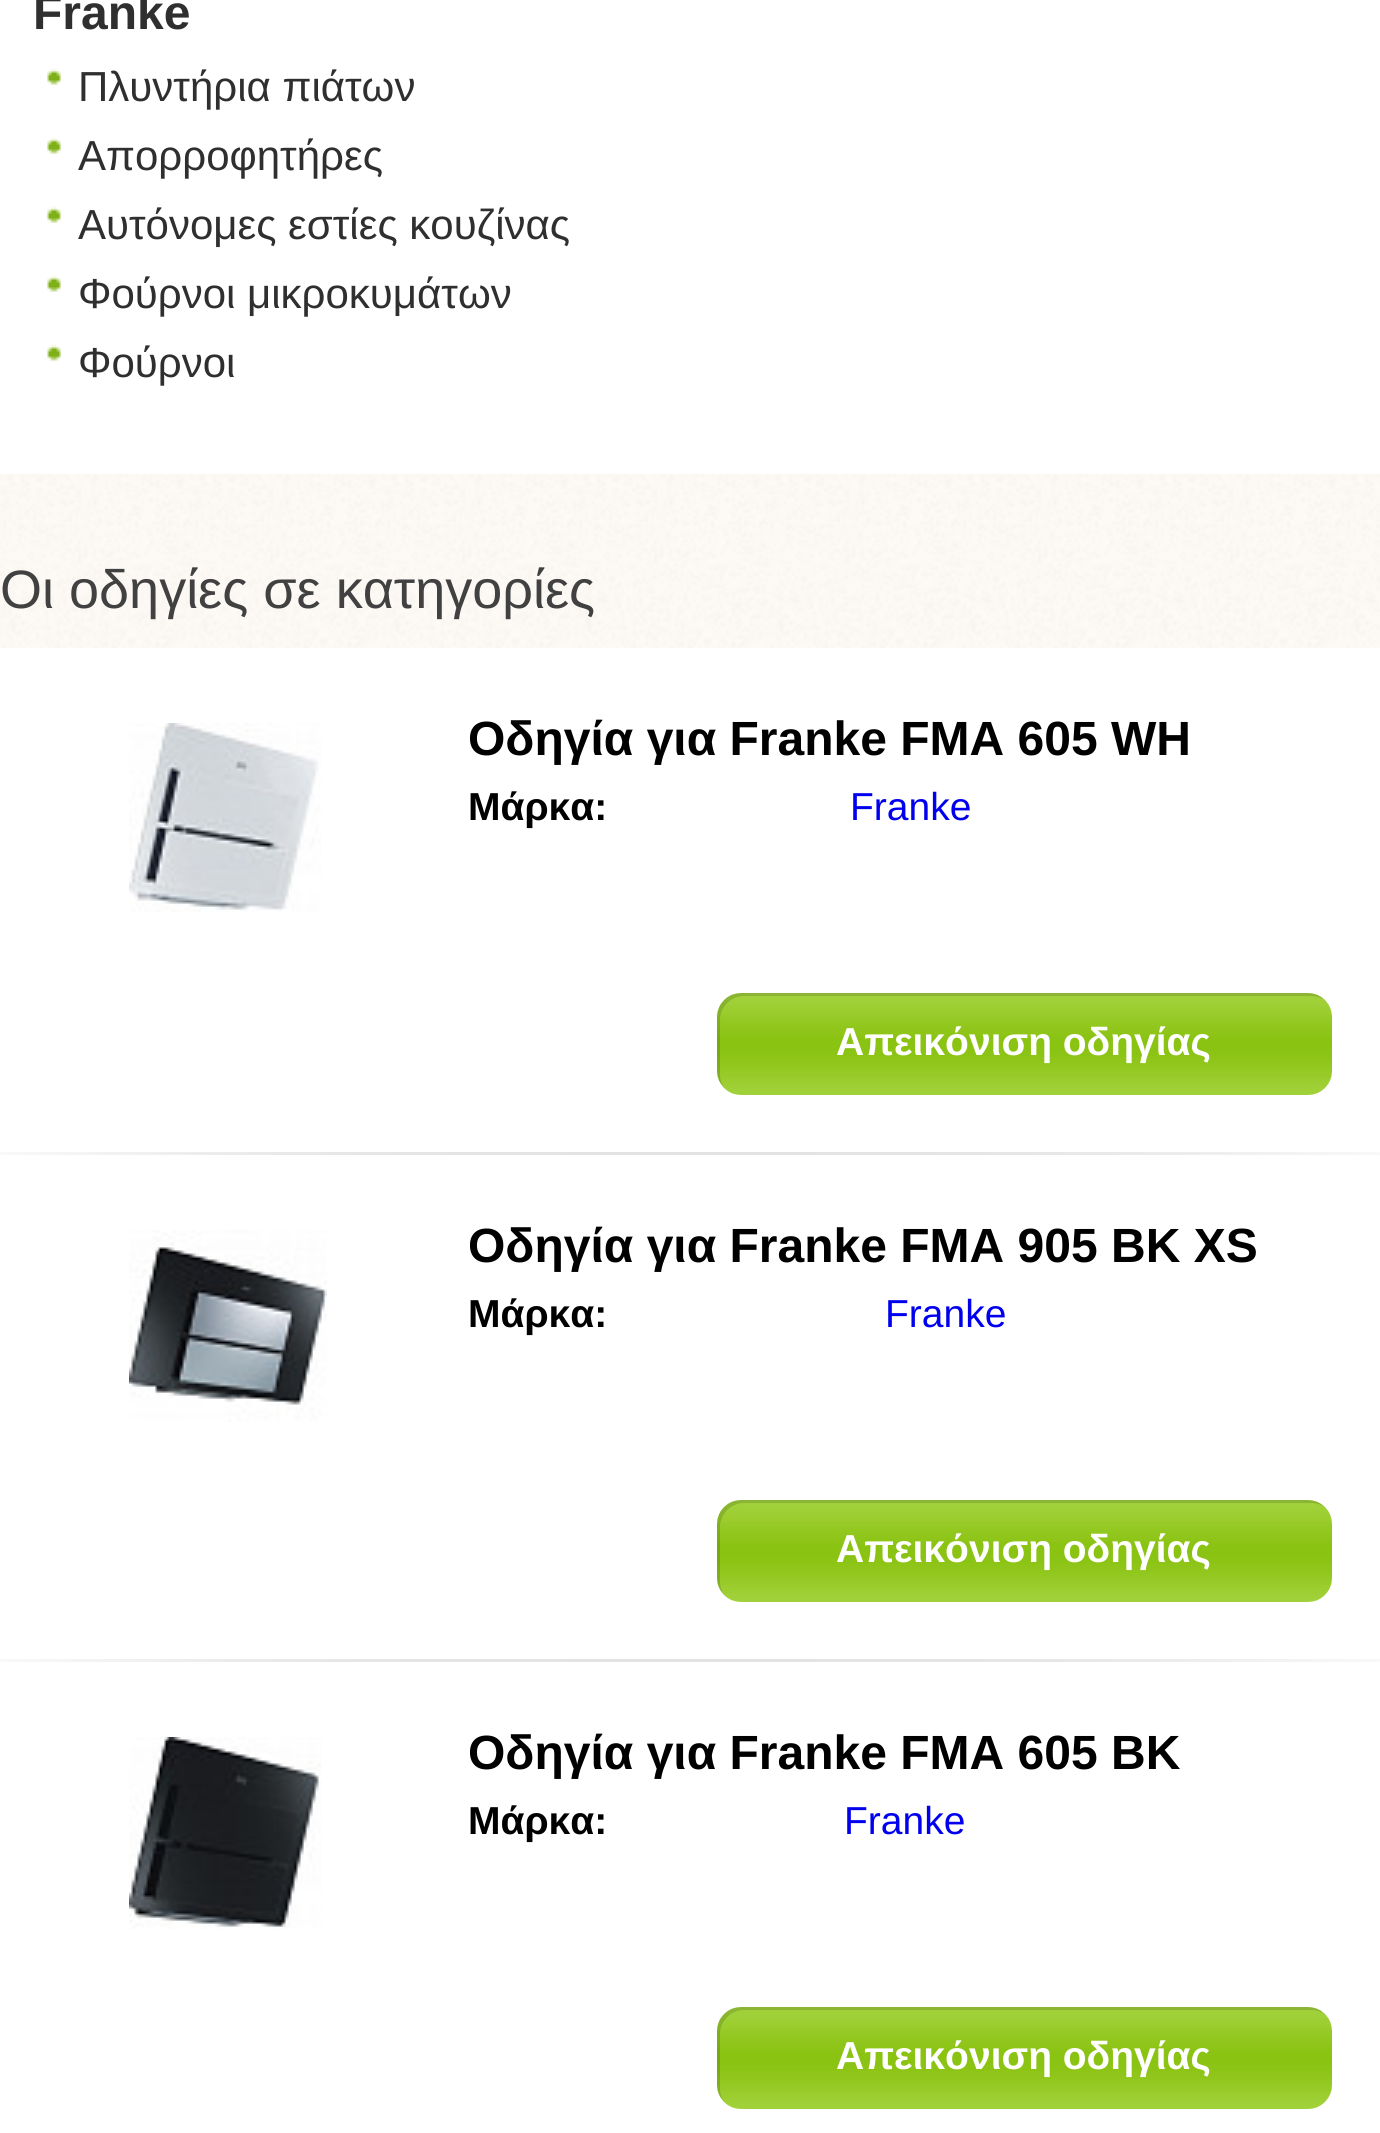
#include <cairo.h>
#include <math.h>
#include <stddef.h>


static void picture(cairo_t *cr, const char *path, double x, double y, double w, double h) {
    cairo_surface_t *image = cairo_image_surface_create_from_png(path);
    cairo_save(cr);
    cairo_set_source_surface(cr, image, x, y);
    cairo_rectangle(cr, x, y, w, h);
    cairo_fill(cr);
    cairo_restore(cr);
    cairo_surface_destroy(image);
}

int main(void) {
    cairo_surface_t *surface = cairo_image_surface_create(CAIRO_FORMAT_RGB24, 1380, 2133);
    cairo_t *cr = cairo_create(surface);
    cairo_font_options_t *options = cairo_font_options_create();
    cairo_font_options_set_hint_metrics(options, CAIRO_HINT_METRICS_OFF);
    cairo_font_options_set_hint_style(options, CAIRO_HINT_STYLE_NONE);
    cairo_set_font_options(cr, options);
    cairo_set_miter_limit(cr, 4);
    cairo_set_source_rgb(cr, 1, 1, 1);
    cairo_paint(cr);
    picture(cr, "img1.png", 0, 474, 1380, 174);
    cairo_select_font_face(cr, "Liberation Sans", CAIRO_FONT_SLANT_NORMAL, CAIRO_FONT_WEIGHT_BOLD);
    cairo_set_font_size(cr, 48);
    cairo_set_source_rgb(cr, 0.184, 0.184, 0.184);
    cairo_move_to(cr, 33, 29);
    cairo_show_text(cr, "Franke");
    picture(cr, "img2.png", 47, 68, 14, 17);
    cairo_select_font_face(cr, "Liberation Sans", CAIRO_FONT_SLANT_NORMAL, CAIRO_FONT_WEIGHT_NORMAL);
    cairo_set_font_size(cr, 42);
    cairo_move_to(cr, 78, 101);
    cairo_show_text(cr, "Πλυντήρια πιάτων");
    picture(cr, "img2.png", 47, 137, 14, 17);
    cairo_move_to(cr, 78, 170);
    cairo_show_text(cr, "Απορροφητήρες");
    picture(cr, "img2.png", 47, 206, 14, 17);
    cairo_move_to(cr, 78, 239);
    cairo_show_text(cr, "Αυτόνομες εστίες κουζίνας");
    picture(cr, "img2.png", 47, 275, 14, 17);
    cairo_move_to(cr, 78, 308);
    cairo_show_text(cr, "Φούρνοι μικροκυμάτων");
    picture(cr, "img2.png", 47, 344, 14, 17);
    cairo_move_to(cr, 78, 377);
    cairo_show_text(cr, "Φούρνοι");
    cairo_set_font_size(cr, 54);
    cairo_set_source_rgb(cr, 0.255, 0.255, 0.255);
    cairo_move_to(cr, 0, 608);
    cairo_show_text(cr, "Οι οδηγίες σε κατηγορίες");
    picture(cr, "img3.png", 0, 1152, 1380, 3);
    picture(cr, "img4.png", 129, 723, 192, 189);
    cairo_select_font_face(cr, "Liberation Sans", CAIRO_FONT_SLANT_NORMAL, CAIRO_FONT_WEIGHT_BOLD);
    cairo_set_font_size(cr, 48);
    cairo_set_source_rgb(cr, 0, 0, 0);
    cairo_move_to(cr, 468, 755);
    cairo_show_text(cr, "Οδηγία για Franke FMA 605 WH");
    cairo_set_font_size(cr, 39);
    cairo_move_to(cr, 468, 820);
    cairo_show_text(cr, "Μάρκα:");
    cairo_select_font_face(cr, "Liberation Sans", CAIRO_FONT_SLANT_NORMAL, CAIRO_FONT_WEIGHT_NORMAL);
    cairo_set_source_rgb(cr, 0, 0, 0.933);
    cairo_move_to(cr, 850, 820);
    cairo_show_text(cr, "Franke");
    picture(cr, "img5.png", 717, 993, 615, 102);
    cairo_set_source_rgba(cr, 0, 0, 0, 0.14);
    cairo_new_path(cr);
    cairo_move_to(cr, 744, 996);
    cairo_line_to(cr, 1311, 996);
    cairo_curve_to(cr, 1317, 996, 1323, 998, 1327, 1002);
    cairo_curve_to(cr, 1322, 997, 1316, 993, 1308, 993);
    cairo_line_to(cr, 741, 993);
    cairo_curve_to(cr, 728, 993, 717, 1004, 717, 1017);
    cairo_line_to(cr, 717, 1071);
    cairo_curve_to(cr, 717, 1079, 721, 1085, 726, 1090);
    cairo_curve_to(cr, 722, 1086, 720, 1080, 720, 1074);
    cairo_line_to(cr, 720, 1020);
    cairo_curve_to(cr, 720, 1007, 731, 996, 744, 996);
    cairo_close_path(cr);
    cairo_fill(cr);
    cairo_select_font_face(cr, "Liberation Sans", CAIRO_FONT_SLANT_NORMAL, CAIRO_FONT_WEIGHT_BOLD);
    cairo_set_source_rgb(cr, 1, 1, 1);
    cairo_move_to(cr, 836, 1055);
    cairo_show_text(cr, "Απεικόνιση οδηγίας");
    picture(cr, "img3.png", 0, 1659, 1380, 3);
    picture(cr, "img6.png", 129, 1230, 198, 192);
    cairo_set_font_size(cr, 48);
    cairo_set_source_rgb(cr, 0, 0, 0);
    cairo_move_to(cr, 468, 1262);
    cairo_show_text(cr, "Οδηγία για Franke FMA 905 BK XS");
    cairo_set_font_size(cr, 39);
    cairo_move_to(cr, 468, 1327);
    cairo_show_text(cr, "Μάρκα:");
    cairo_select_font_face(cr, "Liberation Sans", CAIRO_FONT_SLANT_NORMAL, CAIRO_FONT_WEIGHT_NORMAL);
    cairo_set_source_rgb(cr, 0, 0, 0.933);
    cairo_move_to(cr, 885, 1327);
    cairo_show_text(cr, "Franke");
    picture(cr, "img5.png", 717, 1500, 615, 102);
    cairo_set_source_rgba(cr, 0, 0, 0, 0.14);
    cairo_new_path(cr);
    cairo_move_to(cr, 744, 1503);
    cairo_line_to(cr, 1311, 1503);
    cairo_curve_to(cr, 1317, 1503, 1323, 1505, 1327, 1509);
    cairo_curve_to(cr, 1322, 1504, 1316, 1500, 1308, 1500);
    cairo_line_to(cr, 741, 1500);
    cairo_curve_to(cr, 728, 1500, 717, 1511, 717, 1524);
    cairo_line_to(cr, 717, 1578);
    cairo_curve_to(cr, 717, 1586, 721, 1592, 726, 1597);
    cairo_curve_to(cr, 722, 1593, 720, 1587, 720, 1581);
    cairo_line_to(cr, 720, 1527);
    cairo_curve_to(cr, 720, 1514, 731, 1503, 744, 1503);
    cairo_close_path(cr);
    cairo_fill(cr);
    cairo_select_font_face(cr, "Liberation Sans", CAIRO_FONT_SLANT_NORMAL, CAIRO_FONT_WEIGHT_BOLD);
    cairo_set_source_rgb(cr, 1, 1, 1);
    cairo_move_to(cr, 836, 1562);
    cairo_show_text(cr, "Απεικόνιση οδηγίας");
    picture(cr, "img7.png", 129, 1737, 193, 192);
    cairo_set_font_size(cr, 48);
    cairo_set_source_rgb(cr, 0, 0, 0);
    cairo_move_to(cr, 468, 1769);
    cairo_show_text(cr, "Οδηγία για Franke FMA 605 BK");
    cairo_set_font_size(cr, 39);
    cairo_move_to(cr, 468, 1834);
    cairo_show_text(cr, "Μάρκα:");
    cairo_select_font_face(cr, "Liberation Sans", CAIRO_FONT_SLANT_NORMAL, CAIRO_FONT_WEIGHT_NORMAL);
    cairo_set_source_rgb(cr, 0, 0, 0.933);
    cairo_move_to(cr, 844, 1834);
    cairo_show_text(cr, "Franke");
    picture(cr, "img5.png", 717, 2007, 615, 102);
    cairo_set_source_rgba(cr, 0, 0, 0, 0.14);
    cairo_new_path(cr);
    cairo_move_to(cr, 744, 2010);
    cairo_line_to(cr, 1311, 2010);
    cairo_curve_to(cr, 1317, 2010, 1323, 2012, 1327, 2016);
    cairo_curve_to(cr, 1322, 2011, 1316, 2007, 1308, 2007);
    cairo_line_to(cr, 741, 2007);
    cairo_curve_to(cr, 728, 2007, 717, 2018, 717, 2031);
    cairo_line_to(cr, 717, 2085);
    cairo_curve_to(cr, 717, 2093, 721, 2099, 726, 2104);
    cairo_curve_to(cr, 722, 2100, 720, 2094, 720, 2088);
    cairo_line_to(cr, 720, 2034);
    cairo_curve_to(cr, 720, 2021, 731, 2010, 744, 2010);
    cairo_close_path(cr);
    cairo_fill(cr);
    cairo_select_font_face(cr, "Liberation Sans", CAIRO_FONT_SLANT_NORMAL, CAIRO_FONT_WEIGHT_BOLD);
    cairo_set_source_rgb(cr, 1, 1, 1);
    cairo_move_to(cr, 836, 2069);
    cairo_show_text(cr, "Απεικόνιση οδηγίας");
    cairo_surface_write_to_png(surface, "page.png");
    cairo_font_options_destroy(options);
    cairo_destroy(cr);
    cairo_surface_destroy(surface);
    return 0;
}
